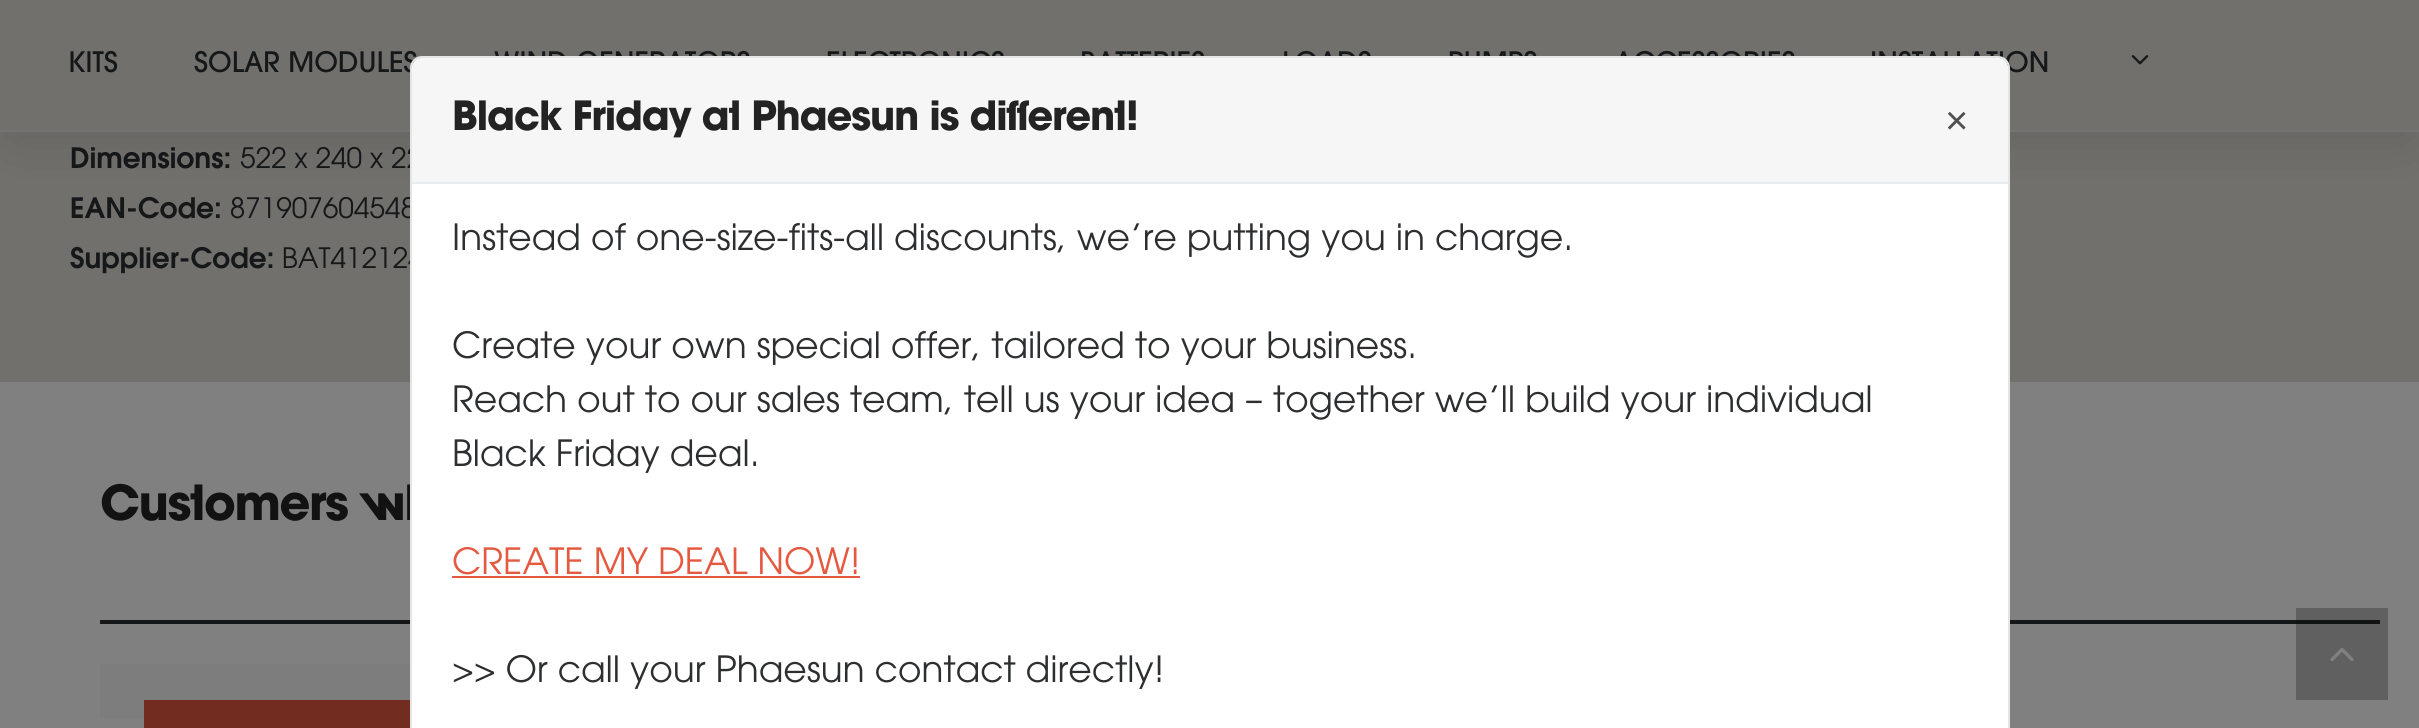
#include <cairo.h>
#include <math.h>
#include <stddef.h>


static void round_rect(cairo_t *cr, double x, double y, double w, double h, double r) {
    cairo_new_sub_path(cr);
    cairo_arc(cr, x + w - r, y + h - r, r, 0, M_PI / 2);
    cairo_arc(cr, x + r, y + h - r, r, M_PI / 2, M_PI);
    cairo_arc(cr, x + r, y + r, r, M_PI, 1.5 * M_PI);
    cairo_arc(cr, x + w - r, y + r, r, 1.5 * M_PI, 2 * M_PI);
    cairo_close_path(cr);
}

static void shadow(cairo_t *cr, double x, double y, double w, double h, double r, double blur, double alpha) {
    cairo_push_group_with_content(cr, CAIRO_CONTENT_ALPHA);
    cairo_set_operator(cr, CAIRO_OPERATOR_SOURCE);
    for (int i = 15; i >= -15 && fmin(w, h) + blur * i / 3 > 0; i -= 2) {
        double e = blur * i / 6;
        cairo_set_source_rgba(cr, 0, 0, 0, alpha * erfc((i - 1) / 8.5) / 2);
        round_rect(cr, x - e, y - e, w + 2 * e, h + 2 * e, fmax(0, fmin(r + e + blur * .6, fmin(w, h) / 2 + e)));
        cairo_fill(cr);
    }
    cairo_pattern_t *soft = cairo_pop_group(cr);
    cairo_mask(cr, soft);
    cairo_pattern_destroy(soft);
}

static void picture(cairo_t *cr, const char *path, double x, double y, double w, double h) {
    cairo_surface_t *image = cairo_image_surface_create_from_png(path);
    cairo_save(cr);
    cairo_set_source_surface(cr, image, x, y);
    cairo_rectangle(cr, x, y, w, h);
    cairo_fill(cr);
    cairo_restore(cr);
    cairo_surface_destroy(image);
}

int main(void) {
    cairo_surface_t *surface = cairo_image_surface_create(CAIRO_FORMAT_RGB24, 2419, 728);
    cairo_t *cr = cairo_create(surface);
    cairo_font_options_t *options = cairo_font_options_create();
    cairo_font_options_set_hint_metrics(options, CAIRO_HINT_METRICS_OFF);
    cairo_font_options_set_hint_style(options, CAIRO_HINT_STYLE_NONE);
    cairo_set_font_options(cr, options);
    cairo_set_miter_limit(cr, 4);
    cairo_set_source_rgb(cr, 0.502, 0.502, 0.502);
    cairo_paint(cr);
    cairo_set_source_rgb(cr, 0.376, 0.376, 0.376);
    cairo_rectangle(cr, 2296, 608, 92, 92);
    cairo_fill(cr);
    cairo_set_source_rgb(cr, 0.443, 0.439, 0.427);
    cairo_rectangle(cr, 0, 132, 2419, 250);
    cairo_fill(cr);
    picture(cr, "img18.png", 71, 147, 159, 22);
    picture(cr, "img19.png", 240, 146, 170, 23);
    picture(cr, "img20.png", 71, 196, 149, 23);
    picture(cr, "img21.png", 230, 196, 180, 23);
    cairo_set_source_rgb(cr, 0, 0, 0);
    shadow(cr, 12, 26, 2396, 108, 0, 30, 0.15);
    cairo_set_source_rgb(cr, 0.443, 0.439, 0.427);
    cairo_rectangle(cr, 0, 0, 2419, 130);
    cairo_fill(cr);
    cairo_set_source_rgb(cr, 0.451, 0.451, 0.451);
    cairo_rectangle(cr, 0, 130, 2419, 2);
    cairo_fill(cr);
    picture(cr, "img1.png", 70, 50, 48, 23);
    picture(cr, "img2.png", 194, 50, 223, 23);
    picture(cr, "img3.png", 494, 50, 256, 6);
    picture(cr, "img4.png", 827, 50, 177, 6);
    picture(cr, "img5.png", 1082, 50, 122, 6);
    picture(cr, "img6.png", 1284, 50, 87, 6);
    picture(cr, "img7.png", 1449, 50, 88, 6);
    picture(cr, "img8.png", 1620, 50, 175, 6);
    picture(cr, "img9.png", 1872, 50, 176, 23);
    picture(cr, "img10.png", 2131, 55, 18, 10);
    cairo_set_source_rgb(cr, 1, 1, 1);
    cairo_new_path(cr);
    cairo_move_to(cr, 422, 58);
    cairo_line_to(cr, 1998, 58);
    cairo_curve_to(cr, 2003.5, 58, 2008, 62.5, 2008, 68);
    cairo_line_to(cr, 2008, 728);
    cairo_line_to(cr, 412, 728);
    cairo_line_to(cr, 412, 68);
    cairo_curve_to(cr, 412, 62.5, 416.5, 58, 422, 58);
    cairo_close_path(cr);
    cairo_fill(cr);
    round_rect(cr, 411, 57, 1598, 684, 11);
    cairo_set_source_rgb(cr, 0.898, 0.898, 0.898);
    cairo_stroke(cr);
    cairo_set_source_rgb(cr, 0.961, 0.961, 0.961);
    cairo_new_path(cr);
    cairo_move_to(cr, 422, 58);
    cairo_line_to(cr, 1998, 58);
    cairo_curve_to(cr, 2003.5, 58, 2008, 62.5, 2008, 68);
    cairo_line_to(cr, 2008, 184);
    cairo_line_to(cr, 412, 184);
    cairo_line_to(cr, 412, 68);
    cairo_curve_to(cr, 412, 62.5, 416.5, 58, 422, 58);
    cairo_close_path(cr);
    cairo_fill(cr);
    cairo_set_source_rgb(cr, 0.914, 0.925, 0.937);
    cairo_rectangle(cr, 412, 182, 1596, 2);
    cairo_fill(cr);
    picture(cr, "img11.png", 454, 100, 682, 38);
    cairo_select_font_face(cr, "Liberation Sans", CAIRO_FONT_SLANT_NORMAL, CAIRO_FONT_WEIGHT_NORMAL);
    cairo_set_font_size(cr, 40);
    cairo_set_source_rgb(cr, 0.314, 0.314, 0.314);
    cairo_move_to(cr, 1945, 134);
    cairo_show_text(cr, "×");
    picture(cr, "img12.png", 454, 222, 1116, 36);
    picture(cr, "img13.png", 453, 330, 961, 35);
    picture(cr, "img14.png", 454, 385, 1417, 35);
    picture(cr, "img15.png", 454, 439, 302, 34);
    picture(cr, "img16.png", 453, 546, 404, 29);
    cairo_set_source_rgb(cr, 0.894, 0.349, 0.247);
    cairo_rectangle(cr, 452, 576, 408, 2);
    cairo_fill(cr);
    picture(cr, "img17.png", 453, 654, 708, 35);
    picture(cr, "img22.png", 70, 246, 203, 28);
    picture(cr, "img23.png", 283, 246, 127, 22);
    picture(cr, "img24.png", 101, 483, 309, 38);
    cairo_set_source_rgb(cr, 0.086, 0.09, 0.094);
    cairo_rectangle(cr, 100, 620, 310, 4);
    cairo_fill(cr);
    cairo_set_source_rgb(cr, 0.49, 0.49, 0.49);
    cairo_rectangle(cr, 100, 664, 310, 54);
    cairo_fill(cr);
    cairo_set_source_rgb(cr, 0.086, 0.09, 0.094);
    cairo_rectangle(cr, 2010, 620, 286, 4);
    cairo_fill(cr);
    cairo_set_source_rgb(cr, 0.067, 0.071, 0.071);
    cairo_rectangle(cr, 2296, 620, 84, 4);
    cairo_fill(cr);
    picture(cr, "img25.png", 2330, 647, 24, 15);
    cairo_set_source_rgb(cr, 0.447, 0.176, 0.125);
    cairo_rectangle(cr, 144, 700, 266, 28);
    cairo_fill(cr);
    cairo_surface_write_to_png(surface, "page.png");
    cairo_font_options_destroy(options);
    cairo_destroy(cr);
    cairo_surface_destroy(surface);
    return 0;
}
